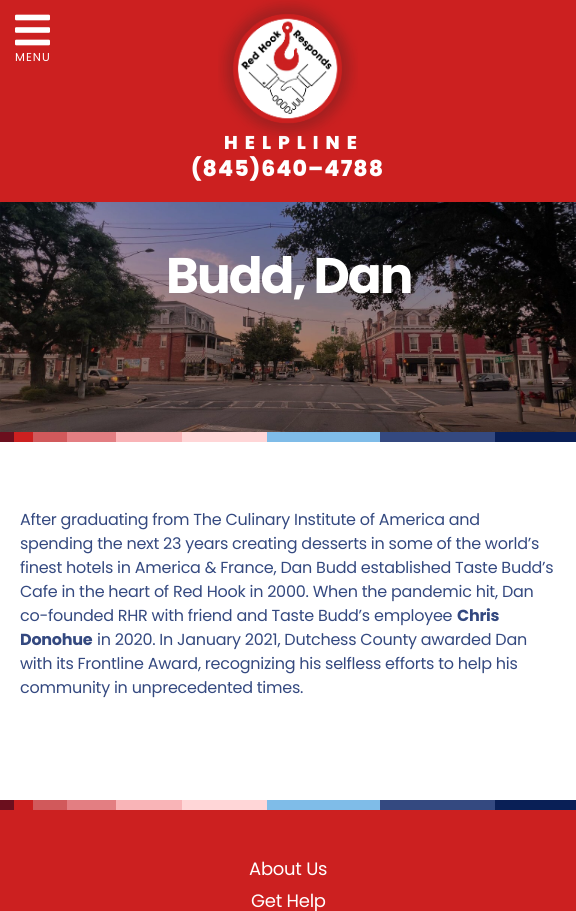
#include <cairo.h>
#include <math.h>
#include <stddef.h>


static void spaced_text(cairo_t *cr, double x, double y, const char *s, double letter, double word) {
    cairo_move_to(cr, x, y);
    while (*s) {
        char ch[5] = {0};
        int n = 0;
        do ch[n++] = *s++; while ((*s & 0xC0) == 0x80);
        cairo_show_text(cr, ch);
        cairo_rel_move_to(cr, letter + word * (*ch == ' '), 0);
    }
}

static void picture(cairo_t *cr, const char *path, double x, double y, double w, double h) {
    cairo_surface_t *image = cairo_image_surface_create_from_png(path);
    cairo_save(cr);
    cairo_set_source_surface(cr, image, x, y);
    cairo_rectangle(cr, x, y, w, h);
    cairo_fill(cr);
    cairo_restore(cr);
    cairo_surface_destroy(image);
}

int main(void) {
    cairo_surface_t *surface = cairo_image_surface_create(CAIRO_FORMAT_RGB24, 576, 911);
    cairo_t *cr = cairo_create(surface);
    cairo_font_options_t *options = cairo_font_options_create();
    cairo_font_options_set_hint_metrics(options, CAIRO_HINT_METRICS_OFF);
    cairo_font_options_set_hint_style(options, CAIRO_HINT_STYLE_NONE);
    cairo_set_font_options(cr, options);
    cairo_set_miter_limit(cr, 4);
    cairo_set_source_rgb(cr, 1, 1, 1);
    cairo_paint(cr);
    cairo_set_source_rgb(cr, 0.8, 0.125, 0.125);
    cairo_rectangle(cr, 0, 0, 576, 202);
    cairo_fill(cr);
    picture(cr, "img1.png", 15, 14, 35, 32);
    cairo_select_font_face(cr, "Poppins", CAIRO_FONT_SLANT_NORMAL, CAIRO_FONT_WEIGHT_NORMAL);
    cairo_set_font_size(cr, 11.5);
    cairo_set_source_rgb(cr, 1, 1, 1);
    spaced_text(cr, 15, 61, "MENU", 1, 0);
    cairo_select_font_face(cr, "Poppins ExtraBold", CAIRO_FONT_SLANT_NORMAL, CAIRO_FONT_WEIGHT_NORMAL);
    cairo_set_font_size(cr, 18.5);
    spaced_text(cr, 224, 149, "HELPLINE", 7, 0);
    picture(cr, "img2.png", 218, 0, 140, 139);
    cairo_set_font_size(cr, 22);
    spaced_text(cr, 191, 176, "(845)640–4788", 1.1, 0);
    picture(cr, "img3.png", 0, 202, 576, 230);
    cairo_select_font_face(cr, "Poppins", CAIRO_FONT_SLANT_NORMAL, CAIRO_FONT_WEIGHT_BOLD);
    cairo_set_font_size(cr, 50);
    spaced_text(cr, 166, 293, "Budd, Dan", -2, 0);
    cairo_set_source_rgb(cr, 0.42, 0.059, 0.118);
    cairo_rectangle(cr, 0, 432, 14, 10);
    cairo_fill(cr);
    cairo_set_source_rgb(cr, 0.8, 0.125, 0.125);
    cairo_rectangle(cr, 14, 432, 19, 10);
    cairo_fill(cr);
    cairo_set_source_rgb(cr, 0.82, 0.349, 0.357);
    cairo_rectangle(cr, 33, 432, 34, 10);
    cairo_fill(cr);
    cairo_set_source_rgb(cr, 0.89, 0.494, 0.51);
    cairo_rectangle(cr, 67, 432, 49, 10);
    cairo_fill(cr);
    cairo_set_source_rgb(cr, 0.976, 0.706, 0.718);
    cairo_rectangle(cr, 116, 432, 66, 10);
    cairo_fill(cr);
    cairo_set_source_rgb(cr, 1, 0.839, 0.843);
    cairo_rectangle(cr, 182, 432, 85, 10);
    cairo_fill(cr);
    cairo_set_source_rgb(cr, 0.498, 0.737, 0.91);
    cairo_rectangle(cr, 267, 432, 113, 10);
    cairo_fill(cr);
    cairo_set_source_rgb(cr, 0.204, 0.286, 0.502);
    cairo_rectangle(cr, 380, 432, 115, 10);
    cairo_fill(cr);
    cairo_set_source_rgb(cr, 0.039, 0.122, 0.337);
    cairo_rectangle(cr, 495, 432, 81, 10);
    cairo_fill(cr);
    cairo_select_font_face(cr, "Poppins", CAIRO_FONT_SLANT_NORMAL, CAIRO_FONT_WEIGHT_NORMAL);
    cairo_set_font_size(cr, 16);
    cairo_set_source_rgb(cr, 0.204, 0.286, 0.502);
    spaced_text(cr, 20, 525, "After graduating from The Culinary Institute of America and", -0.25, 0);
    spaced_text(cr, 20, 549, "spending the next 23 years creating desserts in some of the world’s", -0.25, 0);
    spaced_text(cr, 20, 573, "finest hotels in America & France, Dan Budd established Taste Budd’s", -0.25, 0);
    spaced_text(cr, 20, 597, "Cafe in the heart of Red Hook in 2000. When the pandemic hit, Dan", -0.25, 0);
    spaced_text(cr, 20, 621, "co-founded RHR with friend and Taste Budd’s employee", -0.25, 0);
    cairo_select_font_face(cr, "Poppins", CAIRO_FONT_SLANT_NORMAL, CAIRO_FONT_WEIGHT_BOLD);
    spaced_text(cr, 457, 621, "Chris", -0.25, 0);
    spaced_text(cr, 20, 645, "Donohue", -0.25, 0);
    cairo_select_font_face(cr, "Poppins", CAIRO_FONT_SLANT_NORMAL, CAIRO_FONT_WEIGHT_NORMAL);
    spaced_text(cr, 97, 645, "in 2020. In January 2021, Dutchess County awarded Dan", -0.25, 0);
    spaced_text(cr, 20, 669, "with its Frontline Award, recognizing his selfless efforts to help his", -0.25, 0);
    spaced_text(cr, 20, 693, "community in unprecedented times.", -0.25, 0);
    cairo_set_source_rgb(cr, 0.42, 0.059, 0.118);
    cairo_rectangle(cr, 0, 800, 14, 10);
    cairo_fill(cr);
    cairo_set_source_rgb(cr, 0.8, 0.125, 0.125);
    cairo_rectangle(cr, 14, 800, 19, 10);
    cairo_fill(cr);
    cairo_set_source_rgb(cr, 0.82, 0.349, 0.357);
    cairo_rectangle(cr, 33, 800, 34, 10);
    cairo_fill(cr);
    cairo_set_source_rgb(cr, 0.89, 0.494, 0.51);
    cairo_rectangle(cr, 67, 800, 49, 10);
    cairo_fill(cr);
    cairo_set_source_rgb(cr, 0.976, 0.706, 0.718);
    cairo_rectangle(cr, 116, 800, 66, 10);
    cairo_fill(cr);
    cairo_set_source_rgb(cr, 1, 0.839, 0.843);
    cairo_rectangle(cr, 182, 800, 85, 10);
    cairo_fill(cr);
    cairo_set_source_rgb(cr, 0.498, 0.737, 0.91);
    cairo_rectangle(cr, 267, 800, 113, 10);
    cairo_fill(cr);
    cairo_set_source_rgb(cr, 0.204, 0.286, 0.502);
    cairo_rectangle(cr, 380, 800, 115, 10);
    cairo_fill(cr);
    cairo_set_source_rgb(cr, 0.039, 0.122, 0.337);
    cairo_rectangle(cr, 495, 800, 81, 10);
    cairo_fill(cr);
    cairo_set_source_rgb(cr, 0.8, 0.125, 0.125);
    cairo_rectangle(cr, 0, 810, 576, 101);
    cairo_fill(cr);
    cairo_set_font_size(cr, 18);
    cairo_set_source_rgb(cr, 1, 1, 1);
    spaced_text(cr, 249, 875, "About Us", -0.25, 0);
    spaced_text(cr, 251, 907, "Get Help", -0.25, 0);
    cairo_surface_write_to_png(surface, "page.png");
    cairo_font_options_destroy(options);
    cairo_destroy(cr);
    cairo_surface_destroy(surface);
    return 0;
}
